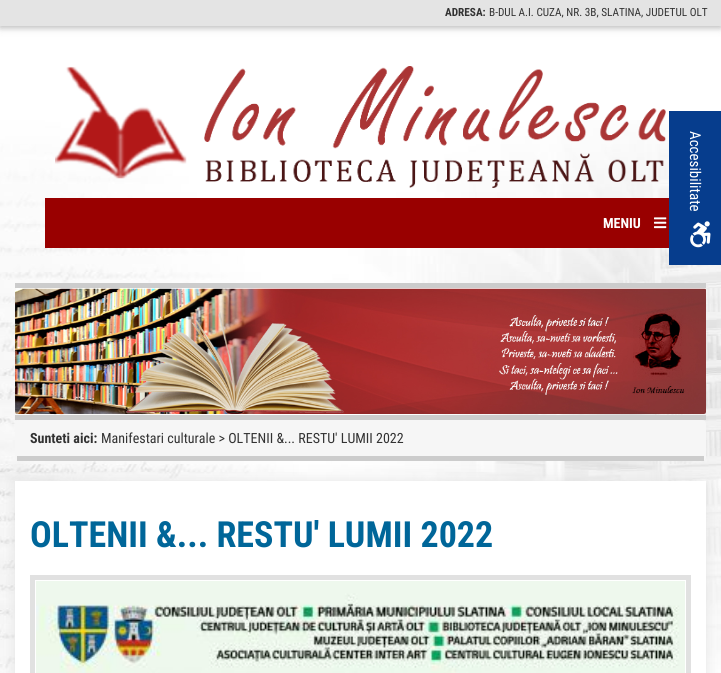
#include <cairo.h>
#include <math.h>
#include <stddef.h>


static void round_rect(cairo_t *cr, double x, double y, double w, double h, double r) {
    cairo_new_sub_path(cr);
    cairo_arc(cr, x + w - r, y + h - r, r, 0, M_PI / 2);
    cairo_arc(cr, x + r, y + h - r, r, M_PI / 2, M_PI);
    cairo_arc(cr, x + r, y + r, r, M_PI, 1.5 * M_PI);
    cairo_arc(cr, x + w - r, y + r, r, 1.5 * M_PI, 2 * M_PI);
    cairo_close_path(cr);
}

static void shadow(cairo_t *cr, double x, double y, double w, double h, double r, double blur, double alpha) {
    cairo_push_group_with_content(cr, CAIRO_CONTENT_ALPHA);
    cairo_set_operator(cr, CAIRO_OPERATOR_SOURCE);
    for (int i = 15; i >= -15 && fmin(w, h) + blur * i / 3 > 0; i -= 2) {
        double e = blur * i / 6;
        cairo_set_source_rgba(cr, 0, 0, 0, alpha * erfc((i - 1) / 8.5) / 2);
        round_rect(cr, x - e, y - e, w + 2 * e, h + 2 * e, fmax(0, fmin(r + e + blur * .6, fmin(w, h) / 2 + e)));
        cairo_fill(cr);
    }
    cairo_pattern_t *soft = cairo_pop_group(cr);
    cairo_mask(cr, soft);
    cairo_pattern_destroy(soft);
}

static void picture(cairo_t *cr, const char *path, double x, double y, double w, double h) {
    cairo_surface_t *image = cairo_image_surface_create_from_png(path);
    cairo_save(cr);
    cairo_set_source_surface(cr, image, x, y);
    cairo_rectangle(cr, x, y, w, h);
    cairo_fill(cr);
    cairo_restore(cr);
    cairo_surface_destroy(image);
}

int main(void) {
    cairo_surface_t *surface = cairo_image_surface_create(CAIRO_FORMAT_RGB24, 721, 673);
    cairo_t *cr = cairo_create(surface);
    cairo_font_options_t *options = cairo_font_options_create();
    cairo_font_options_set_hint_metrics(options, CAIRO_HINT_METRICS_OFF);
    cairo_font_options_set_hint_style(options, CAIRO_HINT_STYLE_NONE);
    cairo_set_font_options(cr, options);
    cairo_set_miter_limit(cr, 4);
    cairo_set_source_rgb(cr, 1, 1, 1);
    cairo_paint(cr);
    picture(cr, "img1.png", 0, 120, 721, 553);
    cairo_set_source_rgb(cr, 0, 0, 0);
    shadow(cr, 0, 2, 721, 26, 0, 5, 0.12);
    shadow(cr, 0, 2, 721, 26, 0, 2.5, 0.16);
    cairo_set_source_rgb(cr, 0.894, 0.894, 0.894);
    cairo_rectangle(cr, 0, 0, 721, 26);
    cairo_fill(cr);
    cairo_select_font_face(cr, "Roboto Condensed", CAIRO_FONT_SLANT_NORMAL, CAIRO_FONT_WEIGHT_BOLD);
    cairo_set_font_size(cr, 11.25);
    cairo_set_source_rgb(cr, 0.2, 0.2, 0.2);
    cairo_move_to(cr, 445, 16);
    cairo_show_text(cr, "ADRESA:");
    cairo_select_font_face(cr, "Roboto Condensed", CAIRO_FONT_SLANT_NORMAL, CAIRO_FONT_WEIGHT_NORMAL);
    cairo_move_to(cr, 489, 16);
    cairo_show_text(cr, "B-DUL A.I. CUZA, NR. 3B, SLATINA, JUDETUL OLT");
    picture(cr, "img2.png", 55, 66, 611, 122);
    cairo_set_source_rgb(cr, 0.024, 0.239, 0.553);
    cairo_rectangle(cr, 669, 111, 52, 154);
    cairo_fill(cr);
    cairo_set_font_size(cr, 15);
    cairo_set_source_rgb(cr, 1, 1, 1);
    cairo_save(cr);
    cairo_translate(cr, 690, 131);
    cairo_rotate(cr, 90 * M_PI / 180);
    cairo_move_to(cr, 0, 0);
    cairo_show_text(cr, "Accesibilitate");
    cairo_restore(cr);
    picture(cr, "img3.png", 690, 221, 21, 27);
    cairo_set_source_rgb(cr, 0.6, 0, 0);
    cairo_rectangle(cr, 45, 198, 624, 50);
    cairo_fill(cr);
    cairo_select_font_face(cr, "Roboto Condensed", CAIRO_FONT_SLANT_NORMAL, CAIRO_FONT_WEIGHT_BOLD);
    cairo_set_font_size(cr, 14);
    cairo_set_source_rgb(cr, 1, 1, 1);
    cairo_move_to(cr, 603, 228);
    cairo_show_text(cr, "MENIU");
    picture(cr, "img4.png", 654, 217, 13, 12);
    cairo_set_source_rgb(cr, 0.8, 0.8, 0.8);
    cairo_rectangle(cr, 15, 283, 691, 5);
    cairo_fill(cr);
    cairo_rectangle(cr, 15, 415, 691, 5);
    cairo_fill(cr);
    picture(cr, "img5.png", 15, 288, 691, 126);
    cairo_set_source_rgb(cr, 0.961, 0.961, 0.961);
    round_rect(cr, 15, 420, 691, 41, 4);
    cairo_fill(cr);
    cairo_set_source_rgb(cr, 0.8, 0.8, 0.8);
    cairo_rectangle(cr, 17, 456, 687, 5);
    cairo_fill(cr);
    cairo_set_source_rgb(cr, 0.2, 0.2, 0.2);
    cairo_move_to(cr, 30, 443);
    cairo_show_text(cr, "Sunteti aici:");
    cairo_select_font_face(cr, "Roboto Condensed", CAIRO_FONT_SLANT_NORMAL, CAIRO_FONT_WEIGHT_NORMAL);
    cairo_move_to(cr, 101, 443);
    cairo_show_text(cr, "Manifestari culturale > OLTENII &... RESTU' LUMII 2022");
    cairo_set_source_rgb(cr, 0.894, 0.894, 0.894);
    shadow(cr, 15, 481, 691, 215, 0, 7.5, 1);
    cairo_set_source_rgb(cr, 1, 1, 1);
    cairo_rectangle(cr, 15, 481, 691, 192);
    cairo_fill(cr);
    cairo_select_font_face(cr, "Roboto Condensed", CAIRO_FONT_SLANT_NORMAL, CAIRO_FONT_WEIGHT_BOLD);
    cairo_set_font_size(cr, 36);
    cairo_set_source_rgb(cr, 0, 0.4, 0.6);
    cairo_move_to(cr, 30, 547);
    cairo_show_text(cr, "OLTENII &... RESTU' LUMII 2022");
    cairo_new_path(cr);
    cairo_move_to(cr, 32.5, 577.5);
    cairo_line_to(cr, 688.5, 577.5);
    cairo_line_to(cr, 688.5, 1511.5);
    cairo_line_to(cr, 32.5, 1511.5);
    cairo_close_path(cr);
    cairo_set_source_rgb(cr, 0.882, 0.882, 0.882);
    cairo_set_line_width(cr, 5);
    cairo_stroke(cr);
    picture(cr, "img6.png", 36, 581, 649, 92);
    cairo_surface_write_to_png(surface, "page.png");
    cairo_font_options_destroy(options);
    cairo_destroy(cr);
    cairo_surface_destroy(surface);
    return 0;
}
